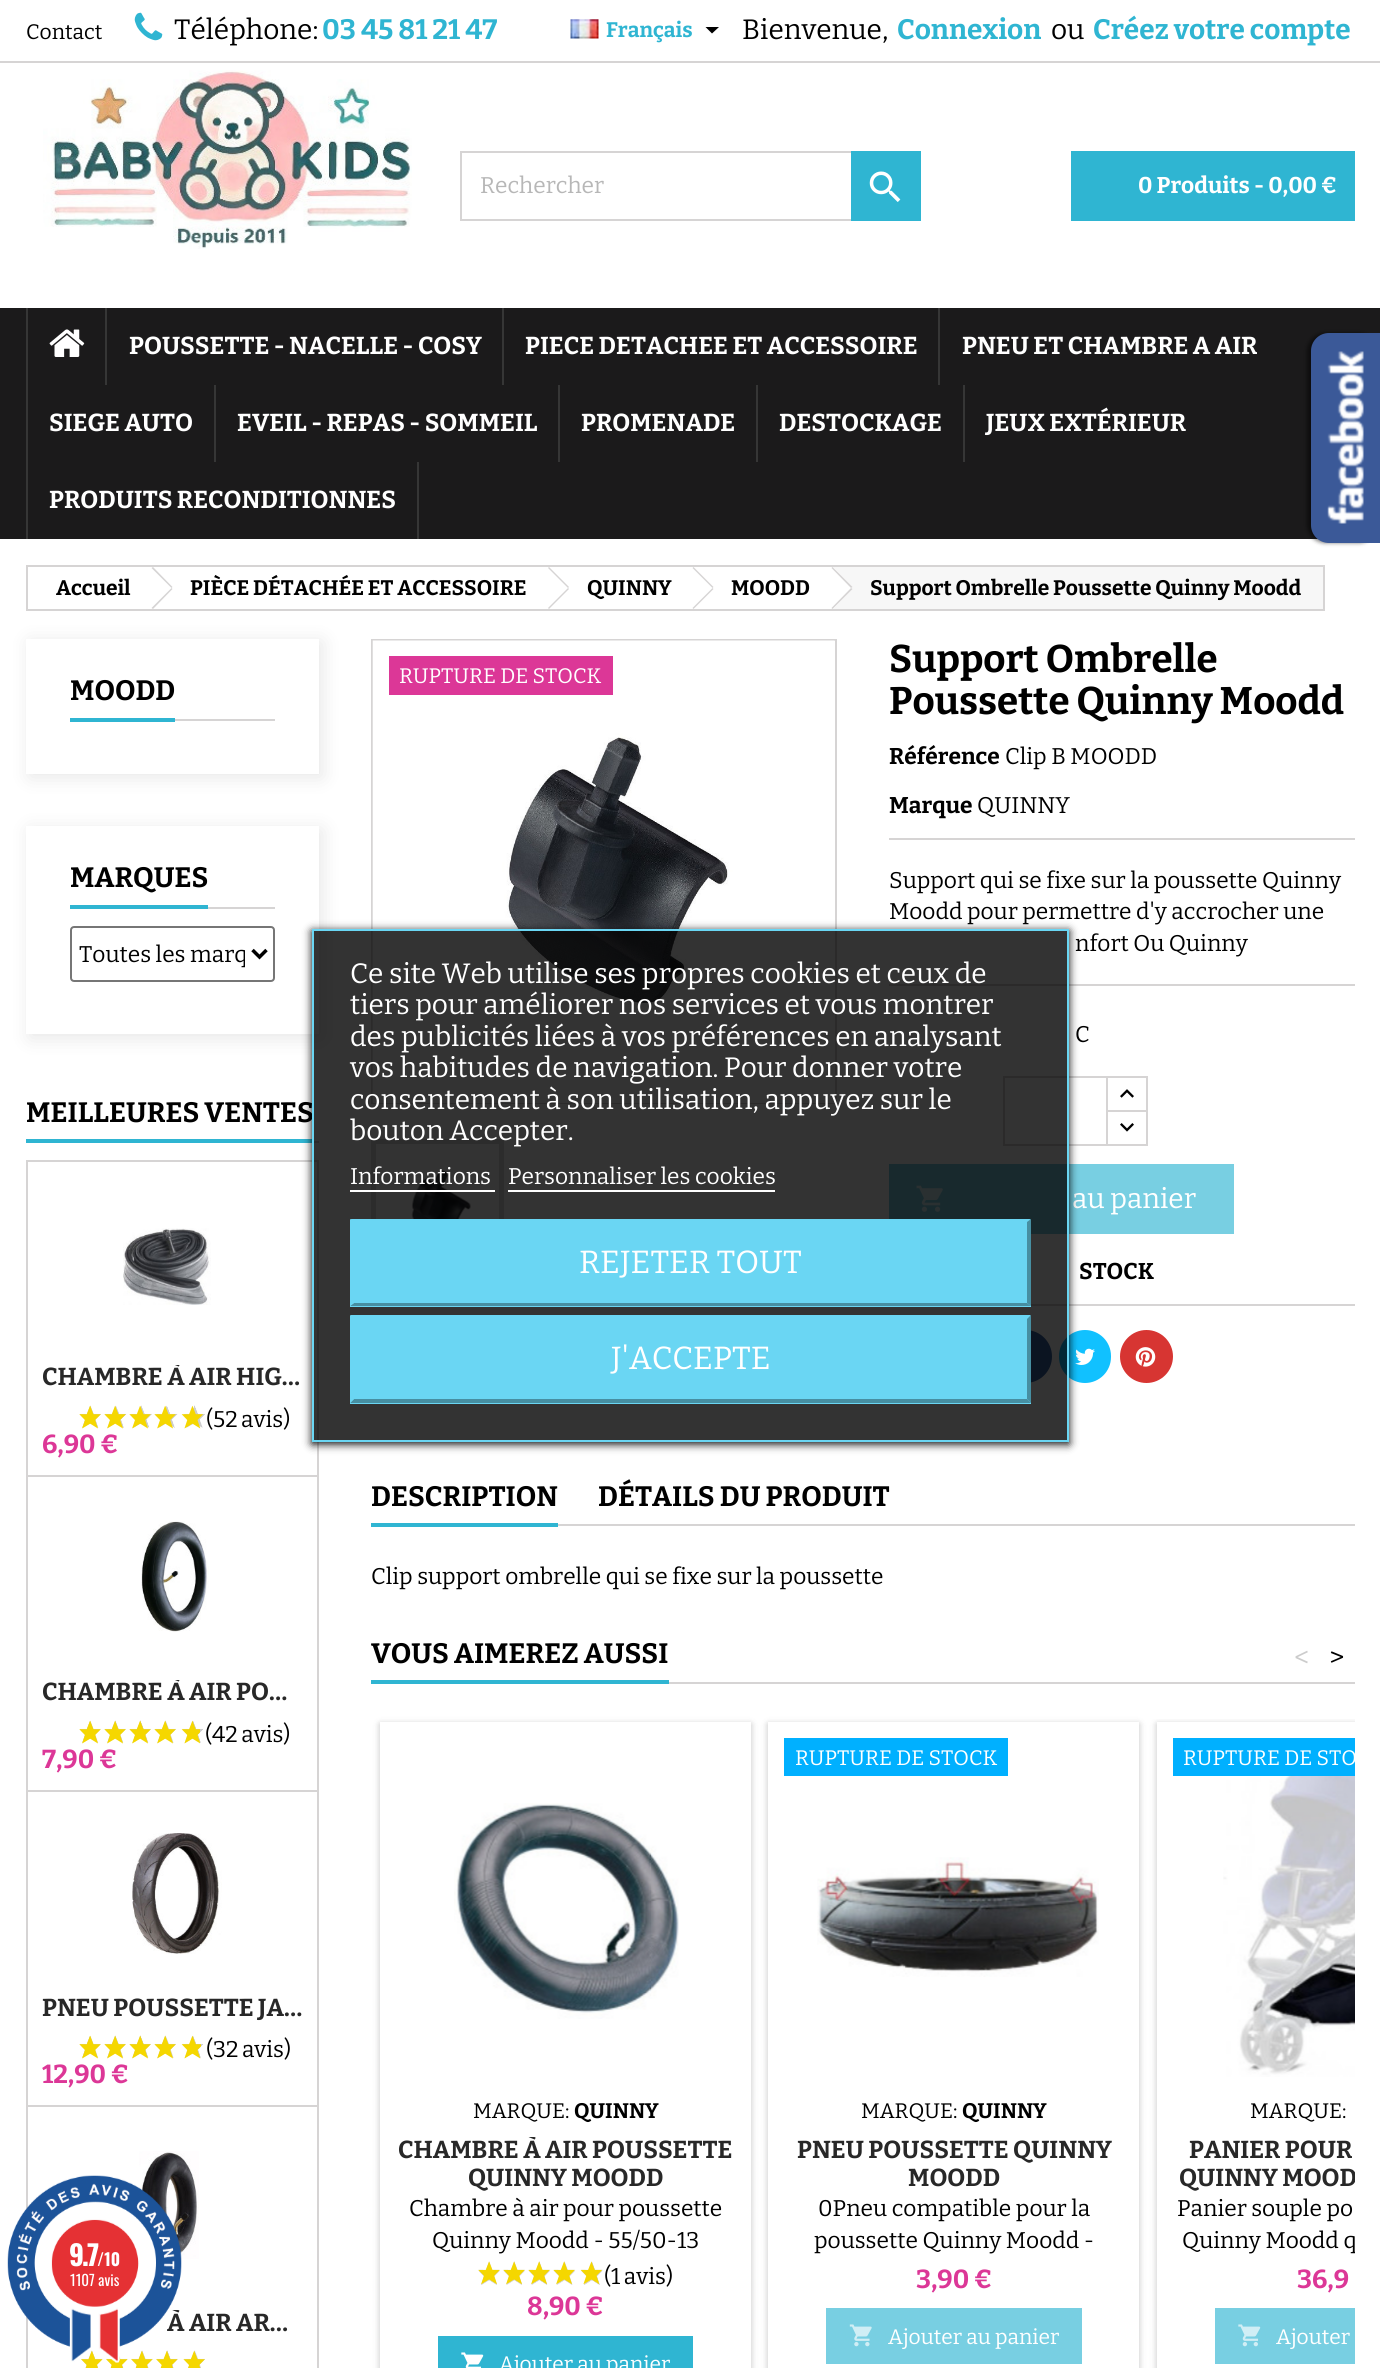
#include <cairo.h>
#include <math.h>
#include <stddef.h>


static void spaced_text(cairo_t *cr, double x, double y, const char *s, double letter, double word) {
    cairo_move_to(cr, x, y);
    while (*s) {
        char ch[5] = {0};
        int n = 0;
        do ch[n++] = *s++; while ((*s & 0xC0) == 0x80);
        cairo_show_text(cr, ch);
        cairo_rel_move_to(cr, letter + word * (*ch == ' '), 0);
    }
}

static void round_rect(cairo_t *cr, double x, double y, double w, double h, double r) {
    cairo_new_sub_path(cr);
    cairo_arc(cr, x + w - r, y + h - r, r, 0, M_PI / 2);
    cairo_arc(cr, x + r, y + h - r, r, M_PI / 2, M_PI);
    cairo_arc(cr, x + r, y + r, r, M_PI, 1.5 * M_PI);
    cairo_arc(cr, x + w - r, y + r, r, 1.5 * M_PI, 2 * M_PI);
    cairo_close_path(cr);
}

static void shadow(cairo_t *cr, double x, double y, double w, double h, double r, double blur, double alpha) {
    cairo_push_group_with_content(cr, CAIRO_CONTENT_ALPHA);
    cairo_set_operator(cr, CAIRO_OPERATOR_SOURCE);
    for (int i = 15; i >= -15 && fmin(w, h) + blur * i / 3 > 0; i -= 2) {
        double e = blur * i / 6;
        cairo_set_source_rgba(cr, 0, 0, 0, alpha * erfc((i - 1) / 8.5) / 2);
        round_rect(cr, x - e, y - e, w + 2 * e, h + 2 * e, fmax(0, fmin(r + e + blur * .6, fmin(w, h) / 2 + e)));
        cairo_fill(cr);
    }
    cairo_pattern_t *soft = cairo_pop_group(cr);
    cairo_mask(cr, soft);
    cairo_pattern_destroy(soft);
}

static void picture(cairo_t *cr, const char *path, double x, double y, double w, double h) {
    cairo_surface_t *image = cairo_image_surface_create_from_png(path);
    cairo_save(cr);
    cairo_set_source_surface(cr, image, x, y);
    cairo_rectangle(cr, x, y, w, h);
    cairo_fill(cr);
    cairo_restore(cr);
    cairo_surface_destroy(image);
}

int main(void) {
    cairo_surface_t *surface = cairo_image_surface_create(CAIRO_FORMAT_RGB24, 1380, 2368);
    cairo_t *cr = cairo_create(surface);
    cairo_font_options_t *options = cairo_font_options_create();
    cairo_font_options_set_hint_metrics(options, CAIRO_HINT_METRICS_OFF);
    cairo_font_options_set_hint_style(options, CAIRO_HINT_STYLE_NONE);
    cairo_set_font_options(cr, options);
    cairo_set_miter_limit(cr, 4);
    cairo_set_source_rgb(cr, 1, 1, 1);
    cairo_paint(cr);
    cairo_set_source_rgb(cr, 0.839, 0.831, 0.831);
    cairo_rectangle(cr, 0, 61, 1380, 2);
    cairo_fill(cr);
    cairo_select_font_face(cr, "Bitter", CAIRO_FONT_SLANT_NORMAL, CAIRO_FONT_WEIGHT_NORMAL);
    cairo_set_font_size(cr, 21);
    cairo_set_source_rgb(cr, 0, 0, 0);
    cairo_move_to(cr, 26, 39);
    cairo_show_text(cr, "Contact");
    picture(cr, "img1.png", 134, 12, 29, 29);
    cairo_set_font_size(cr, 28);
    cairo_move_to(cr, 174, 39);
    cairo_show_text(cr, "Téléphone:");
    cairo_select_font_face(cr, "Bitter", CAIRO_FONT_SLANT_NORMAL, CAIRO_FONT_WEIGHT_BOLD);
    cairo_set_source_rgb(cr, 0.184, 0.71, 0.824);
    cairo_move_to(cr, 322, 39);
    cairo_show_text(cr, "03 45 81 21 47");
    picture(cr, "img2.png", 570, 19, 29, 20);
    cairo_set_font_size(cr, 21);
    cairo_move_to(cr, 606, 37);
    cairo_show_text(cr, "Français");
    cairo_set_source_rgb(cr, 0, 0, 0);
    cairo_new_path(cr);
    cairo_move_to(cr, 705.5, 27);
    cairo_line_to(cr, 719, 27);
    cairo_line_to(cr, 712, 33.5);
    cairo_close_path(cr);
    cairo_fill(cr);
    cairo_select_font_face(cr, "Bitter", CAIRO_FONT_SLANT_NORMAL, CAIRO_FONT_WEIGHT_NORMAL);
    cairo_set_font_size(cr, 28);
    cairo_move_to(cr, 742, 39);
    cairo_show_text(cr, "Bienvenue,");
    cairo_select_font_face(cr, "Bitter", CAIRO_FONT_SLANT_NORMAL, CAIRO_FONT_WEIGHT_BOLD);
    cairo_set_source_rgb(cr, 0.184, 0.71, 0.824);
    cairo_move_to(cr, 897, 39);
    cairo_show_text(cr, "Connexion");
    cairo_select_font_face(cr, "Bitter", CAIRO_FONT_SLANT_NORMAL, CAIRO_FONT_WEIGHT_NORMAL);
    cairo_set_source_rgb(cr, 0, 0, 0);
    cairo_move_to(cr, 1051, 39);
    cairo_show_text(cr, "ou");
    cairo_select_font_face(cr, "Bitter", CAIRO_FONT_SLANT_NORMAL, CAIRO_FONT_WEIGHT_BOLD);
    cairo_set_source_rgb(cr, 0.184, 0.71, 0.824);
    cairo_move_to(cr, 1093, 39);
    cairo_show_text(cr, "Créez votre compte");
    picture(cr, "img3.png", 43, 70, 369, 179);
    cairo_rectangle(cr, 461, 152, 459, 68);
    cairo_set_source_rgb(cr, 0.839, 0.831, 0.831);
    cairo_stroke(cr);
    cairo_select_font_face(cr, "Bitter", CAIRO_FONT_SLANT_NORMAL, CAIRO_FONT_WEIGHT_NORMAL);
    cairo_set_font_size(cr, 22.75);
    cairo_set_source_rgb(cr, 0.718, 0.718, 0.718);
    cairo_move_to(cr, 480, 193);
    cairo_show_text(cr, "Rechercher");
    cairo_set_source_rgb(cr, 0.184, 0.71, 0.824);
    cairo_rectangle(cr, 851, 151, 70, 70);
    cairo_fill(cr);
    picture(cr, "img4.png", 869, 171, 32, 31);
    cairo_rectangle(cr, 1071, 151, 284, 70);
    cairo_fill(cr);
    cairo_select_font_face(cr, "Bitter", CAIRO_FONT_SLANT_NORMAL, CAIRO_FONT_WEIGHT_BOLD);
    cairo_set_source_rgb(cr, 1, 1, 1);
    cairo_move_to(cr, 1138, 193);
    cairo_show_text(cr, "0 Produits - 0,00 €");
    cairo_set_source_rgb(cr, 0.106, 0.102, 0.106);
    cairo_rectangle(cr, 0, 308, 1380, 231);
    cairo_fill(cr);
    cairo_set_source_rgb(cr, 0.212, 0.212, 0.212);
    cairo_rectangle(cr, 26, 308, 2, 231);
    cairo_fill(cr);
    picture(cr, "img5.png", 49, 329, 36, 28);
    cairo_rectangle(cr, 105, 308, 2, 77);
    cairo_fill(cr);
    cairo_set_font_size(cr, 24.5);
    cairo_set_source_rgb(cr, 1, 1, 1);
    cairo_move_to(cr, 129, 354);
    cairo_show_text(cr, "POUSSETTE - NACELLE - COSY");
    cairo_set_source_rgb(cr, 0.212, 0.212, 0.212);
    cairo_rectangle(cr, 502, 308, 2, 77);
    cairo_fill(cr);
    cairo_set_source_rgb(cr, 1, 1, 1);
    cairo_move_to(cr, 525, 354);
    cairo_show_text(cr, "PIECE DETACHEE ET ACCESSOIRE");
    cairo_set_source_rgb(cr, 0.212, 0.212, 0.212);
    cairo_rectangle(cr, 938, 308, 2, 77);
    cairo_fill(cr);
    cairo_set_source_rgb(cr, 1, 1, 1);
    cairo_move_to(cr, 962, 354);
    cairo_show_text(cr, "PNEU ET CHAMBRE A AIR");
    cairo_move_to(cr, 49, 431);
    cairo_show_text(cr, "SIEGE AUTO");
    cairo_set_source_rgb(cr, 0.212, 0.212, 0.212);
    cairo_rectangle(cr, 214, 385, 2, 77);
    cairo_fill(cr);
    cairo_set_source_rgb(cr, 1, 1, 1);
    cairo_move_to(cr, 237, 431);
    cairo_show_text(cr, "EVEIL - REPAS - SOMMEIL");
    cairo_set_source_rgb(cr, 0.212, 0.212, 0.212);
    cairo_rectangle(cr, 558, 385, 2, 77);
    cairo_fill(cr);
    cairo_set_source_rgb(cr, 1, 1, 1);
    cairo_move_to(cr, 581, 431);
    cairo_show_text(cr, "PROMENADE");
    cairo_set_source_rgb(cr, 0.212, 0.212, 0.212);
    cairo_rectangle(cr, 756, 385, 2, 77);
    cairo_fill(cr);
    cairo_set_source_rgb(cr, 1, 1, 1);
    cairo_move_to(cr, 779, 431);
    cairo_show_text(cr, "DESTOCKAGE");
    cairo_set_source_rgb(cr, 0.212, 0.212, 0.212);
    cairo_rectangle(cr, 963, 385, 2, 77);
    cairo_fill(cr);
    cairo_set_source_rgb(cr, 1, 1, 1);
    cairo_move_to(cr, 986, 431);
    cairo_show_text(cr, "JEUX EXTÉRIEUR");
    cairo_set_source_rgb(cr, 0.212, 0.212, 0.212);
    cairo_rectangle(cr, 417, 462, 2, 77);
    cairo_fill(cr);
    cairo_set_source_rgb(cr, 1, 1, 1);
    cairo_move_to(cr, 49, 508);
    cairo_show_text(cr, "PRODUITS RECONDITIONNES");
    cairo_set_source_rgb(cr, 0, 0, 0);
    shadow(cr, 1307, 333, 70, 210, 18, 2, 0.5);
    cairo_set_source_rgb(cr, 0.231, 0.349, 0.596);
    cairo_new_path(cr);
    cairo_move_to(cr, 1329, 333);
    cairo_line_to(cr, 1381, 333);
    cairo_line_to(cr, 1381, 543);
    cairo_line_to(cr, 1329, 543);
    cairo_curve_to(cr, 1319, 543, 1311, 535, 1311, 525);
    cairo_line_to(cr, 1311, 351);
    cairo_curve_to(cr, 1311, 341, 1319, 333, 1329, 333);
    cairo_close_path(cr);
    cairo_fill(cr);
    picture(cr, "img6.png", 1327, 351, 37, 173);
    cairo_rectangle(cr, 27, 566, 1297, 44);
    cairo_set_source_rgb(cr, 0.839, 0.831, 0.831);
    cairo_stroke(cr);
    cairo_set_font_size(cr, 21);
    cairo_set_source_rgb(cr, 0, 0, 0);
    cairo_move_to(cr, 56, 595);
    cairo_show_text(cr, "Accueil");
    cairo_set_source_rgb(cr, 0.839, 0.831, 0.831);
    cairo_new_path(cr);
    cairo_move_to(cr, 153, 567);
    cairo_line_to(cr, 172.5, 587);
    cairo_line_to(cr, 171.5, 588);
    cairo_line_to(cr, 151.5, 568);
    cairo_close_path(cr);
    cairo_move_to(cr, 171.5, 588);
    cairo_line_to(cr, 172.5, 589);
    cairo_line_to(cr, 153, 609);
    cairo_line_to(cr, 151.5, 608);
    cairo_close_path(cr);
    cairo_fill(cr);
    cairo_set_source_rgb(cr, 0, 0, 0);
    cairo_move_to(cr, 190, 595);
    cairo_show_text(cr, "PIÈCE DÉTACHÉE ET ACCESSOIRE");
    cairo_set_source_rgb(cr, 0.839, 0.831, 0.831);
    cairo_new_path(cr);
    cairo_move_to(cr, 549, 567);
    cairo_line_to(cr, 569, 587);
    cairo_line_to(cr, 568, 588);
    cairo_line_to(cr, 548, 568);
    cairo_close_path(cr);
    cairo_move_to(cr, 568, 588);
    cairo_line_to(cr, 569, 589);
    cairo_line_to(cr, 549, 609);
    cairo_line_to(cr, 548, 608);
    cairo_close_path(cr);
    cairo_fill(cr);
    cairo_set_source_rgb(cr, 0, 0, 0);
    cairo_move_to(cr, 587, 595);
    cairo_show_text(cr, "QUINNY");
    cairo_set_source_rgb(cr, 0.839, 0.831, 0.831);
    cairo_new_path(cr);
    cairo_move_to(cr, 693.5, 567);
    cairo_line_to(cr, 713.5, 587);
    cairo_line_to(cr, 712.5, 588);
    cairo_line_to(cr, 692.5, 568);
    cairo_close_path(cr);
    cairo_move_to(cr, 712.5, 588);
    cairo_line_to(cr, 713.5, 589);
    cairo_line_to(cr, 693.5, 609);
    cairo_line_to(cr, 692.5, 608);
    cairo_close_path(cr);
    cairo_fill(cr);
    cairo_set_source_rgb(cr, 0, 0, 0);
    cairo_move_to(cr, 731, 595);
    cairo_show_text(cr, "MOODD");
    cairo_set_source_rgb(cr, 0.965, 0.965, 0.965);
    cairo_rectangle(cr, 831, 567, 492, 42);
    cairo_fill(cr);
    cairo_set_source_rgb(cr, 1, 1, 1);
    cairo_new_path(cr);
    cairo_move_to(cr, 834, 568);
    cairo_line_to(cr, 851, 586);
    cairo_curve_to(cr, 852, 587, 852, 589, 851, 590);
    cairo_line_to(cr, 834, 608);
    cairo_curve_to(cr, 832, 609, 830, 609, 829, 608);
    cairo_line_to(cr, 812, 590);
    cairo_curve_to(cr, 810, 589, 810, 587, 812, 586);
    cairo_line_to(cr, 829, 568);
    cairo_curve_to(cr, 830, 567, 832, 567, 834, 568);
    cairo_close_path(cr);
    cairo_fill(cr);
    cairo_set_source_rgb(cr, 0.839, 0.831, 0.831);
    cairo_new_path(cr);
    cairo_move_to(cr, 832.5, 567);
    cairo_line_to(cr, 852.5, 587);
    cairo_line_to(cr, 851, 588);
    cairo_line_to(cr, 831.5, 568);
    cairo_close_path(cr);
    cairo_move_to(cr, 851, 588);
    cairo_line_to(cr, 852.5, 589);
    cairo_line_to(cr, 832.5, 609);
    cairo_line_to(cr, 831.5, 608);
    cairo_close_path(cr);
    cairo_fill(cr);
    cairo_set_source_rgb(cr, 0, 0, 0);
    cairo_move_to(cr, 870, 595);
    cairo_show_text(cr, "Support Ombrelle Poussette Quinny Moodd");
    cairo_set_source_rgb(cr, 0, 0, 0);
    shadow(cr, 30, 642, 292, 135, 0, 9.5, 0.1);
    cairo_set_source_rgb(cr, 1, 1, 1);
    cairo_rectangle(cr, 26, 639, 293, 135);
    cairo_fill(cr);
    cairo_set_source_rgb(cr, 0.839, 0.831, 0.831);
    cairo_rectangle(cr, 175, 719, 100, 2);
    cairo_fill(cr);
    cairo_set_source_rgb(cr, 0.184, 0.71, 0.824);
    cairo_rectangle(cr, 70, 718, 105, 4);
    cairo_fill(cr);
    cairo_set_font_size(cr, 28);
    cairo_set_source_rgb(cr, 0, 0, 0);
    cairo_move_to(cr, 70, 700);
    cairo_show_text(cr, "MOODD");
    cairo_set_source_rgb(cr, 0, 0, 0);
    shadow(cr, 30, 830, 292, 208, 0, 9.5, 0.1);
    cairo_set_source_rgb(cr, 1, 1, 1);
    cairo_rectangle(cr, 26, 826, 293, 208);
    cairo_fill(cr);
    cairo_set_source_rgb(cr, 0.839, 0.831, 0.831);
    cairo_rectangle(cr, 208, 907, 67, 2);
    cairo_fill(cr);
    cairo_set_source_rgb(cr, 0.184, 0.71, 0.824);
    cairo_rectangle(cr, 70, 905, 138, 4);
    cairo_fill(cr);
    cairo_set_source_rgb(cr, 0, 0, 0);
    cairo_move_to(cr, 70, 887);
    cairo_show_text(cr, "MARQUES");
    round_rect(cr, 71, 927, 203, 54, 3);
    cairo_set_source_rgb(cr, 0.463, 0.463, 0.463);
    cairo_stroke(cr);
    cairo_new_path(cr);
    cairo_move_to(cr, 252.5, 950);
    cairo_line_to(cr, 259.5, 957);
    cairo_line_to(cr, 266.5, 950);
    cairo_set_source_rgb(cr, 0, 0, 0);
    cairo_set_line_width(cr, 3.5);
    cairo_stroke(cr);
    cairo_save(cr);
    cairo_rectangle(cr, 79, 940, 166, 30);
    cairo_clip(cr);
    cairo_select_font_face(cr, "Bitter", CAIRO_FONT_SLANT_NORMAL, CAIRO_FONT_WEIGHT_NORMAL);
    cairo_set_font_size(cr, 22.75);
    cairo_move_to(cr, 79, 962);
    cairo_show_text(cr, "Toutes les marq");
    cairo_restore(cr);
    cairo_set_source_rgb(cr, 0.839, 0.831, 0.831);
    cairo_rectangle(cr, 314, 1141, 5, 2);
    cairo_fill(cr);
    cairo_set_source_rgb(cr, 0.184, 0.71, 0.824);
    cairo_rectangle(cr, 26, 1139, 287, 4);
    cairo_fill(cr);
    cairo_set_source_rgb(cr, 0, 0, 0);
    cairo_move_to(cr, 26, 1122);
    cairo_show_text(cr, "MEILLEURES VENTES");
    cairo_rectangle(cr, 27, 1161, 291, 315);
    cairo_set_source_rgb(cr, 0.839, 0.831, 0.831);
    cairo_set_line_width(cr, 2);
    cairo_stroke(cr);
    picture(cr, "img7.png", 123, 1228, 88, 77);
    cairo_save(cr);
    cairo_rectangle(cr, 42, 1365, 261, 28);
    cairo_clip(cr);
    cairo_set_font_size(cr, 24.5);
    cairo_set_source_rgb(cr, 0.157, 0.157, 0.157);
    cairo_move_to(cr, 42, 1385);
    cairo_show_text(cr, "CHAMBRE À AIR HIG…");
    cairo_restore(cr);
    picture(cr, "img9.png", 80, 1405, 125, 23);
    picture(cr, "img8.png", 79, 1405, 124, 24);
    cairo_select_font_face(cr, "Bitter", CAIRO_FONT_SLANT_NORMAL, CAIRO_FONT_WEIGHT_NORMAL);
    cairo_set_font_size(cr, 22.75);
    cairo_set_source_rgb(cr, 0, 0, 0);
    spaced_text(cr, 206, 1427, "(52 avis)", 0, -1);
    cairo_select_font_face(cr, "Bitter", CAIRO_FONT_SLANT_NORMAL, CAIRO_FONT_WEIGHT_BOLD);
    cairo_set_font_size(cr, 26);
    cairo_set_source_rgb(cr, 0.863, 0.216, 0.592);
    cairo_move_to(cr, 42, 1453);
    cairo_show_text(cr, "6,90 €");
    cairo_set_source_rgb(cr, 0.839, 0.831, 0.831);
    cairo_rectangle(cr, 317, 1477, 2, 891);
    cairo_fill(cr);
    cairo_rectangle(cr, 26, 1790, 293, 2);
    cairo_fill(cr);
    cairo_rectangle(cr, 26, 1477, 2, 315);
    cairo_fill(cr);
    picture(cr, "img10.png", 141, 1521, 68, 111);
    cairo_save(cr);
    cairo_rectangle(cr, 42, 1680, 261, 28);
    cairo_clip(cr);
    cairo_set_font_size(cr, 24.5);
    cairo_set_source_rgb(cr, 0.157, 0.157, 0.157);
    cairo_move_to(cr, 42, 1700);
    cairo_show_text(cr, "CHAMBRE À AIR PO…");
    cairo_restore(cr);
    picture(cr, "img12.png", 80, 1720, 123, 23);
    picture(cr, "img11.png", 79, 1720, 121, 24);
    cairo_select_font_face(cr, "Bitter", CAIRO_FONT_SLANT_NORMAL, CAIRO_FONT_WEIGHT_NORMAL);
    cairo_set_font_size(cr, 22.75);
    cairo_set_source_rgb(cr, 0, 0, 0);
    spaced_text(cr, 205, 1742, "(42 avis)", 0, -1);
    cairo_select_font_face(cr, "Bitter", CAIRO_FONT_SLANT_NORMAL, CAIRO_FONT_WEIGHT_BOLD);
    cairo_set_font_size(cr, 26);
    cairo_set_source_rgb(cr, 0.863, 0.216, 0.592);
    cairo_move_to(cr, 42, 1768);
    cairo_show_text(cr, "7,90 €");
    cairo_set_source_rgb(cr, 0.839, 0.831, 0.831);
    cairo_rectangle(cr, 26, 2105, 293, 2);
    cairo_fill(cr);
    cairo_rectangle(cr, 26, 1792, 2, 576);
    cairo_fill(cr);
    picture(cr, "img13.png", 132, 1833, 90, 121);
    cairo_set_font_size(cr, 24.5);
    cairo_set_source_rgb(cr, 0.157, 0.157, 0.157);
    cairo_move_to(cr, 42, 2016);
    cairo_show_text(cr, "PNEU POUSSETTE JA…");
    picture(cr, "img12.png", 80, 2035, 123, 23);
    picture(cr, "img14.png", 79, 2035, 122, 24);
    cairo_select_font_face(cr, "Bitter", CAIRO_FONT_SLANT_NORMAL, CAIRO_FONT_WEIGHT_NORMAL);
    cairo_set_font_size(cr, 22.75);
    cairo_set_source_rgb(cr, 0, 0, 0);
    spaced_text(cr, 206, 2057, "(32 avis)", 0, -1);
    cairo_select_font_face(cr, "Bitter", CAIRO_FONT_SLANT_NORMAL, CAIRO_FONT_WEIGHT_BOLD);
    cairo_set_font_size(cr, 26);
    cairo_set_source_rgb(cr, 0.863, 0.216, 0.592);
    cairo_move_to(cr, 42, 2083);
    cairo_show_text(cr, "12,90 €");
    picture(cr, "img15.png", 139, 2151, 60, 108);
    cairo_save(cr);
    cairo_rectangle(cr, 42, 2310, 261, 28);
    cairo_clip(cr);
    cairo_set_font_size(cr, 24.5);
    cairo_set_source_rgb(cr, 0.157, 0.157, 0.157);
    cairo_move_to(cr, 167, 2331);
    cairo_show_text(cr, "À AIR AR…");
    cairo_restore(cr);
    picture(cr, "img16.png", 81, 2350, 124, 18);
    picture(cr, "img17.png", 81, 2350, 124, 18);
    cairo_rectangle(cr, 372, 640, 464, 463);
    cairo_set_source_rgb(cr, 0.839, 0.831, 0.831);
    cairo_stroke(cr);
    cairo_set_source_rgb(cr, 1, 1, 1);
    cairo_rectangle(cr, 373, 1102, 462, 1);
    cairo_fill(cr);
    picture(cr, "img18.png", 372, 640, 463, 463);
    cairo_rectangle(cr, 373.5, 1141.5, 128, 128);
    cairo_set_source_rgb(cr, 0.859, 0.859, 0.859);
    cairo_set_line_width(cr, 5);
    cairo_stroke(cr);
    picture(cr, "img19.png", 411, 1170, 60, 49);
    cairo_set_source_rgb(cr, 0.863, 0.216, 0.592);
    cairo_rectangle(cr, 389, 656, 224, 39);
    cairo_fill(cr);
    cairo_select_font_face(cr, "Bitter", CAIRO_FONT_SLANT_NORMAL, CAIRO_FONT_WEIGHT_NORMAL);
    cairo_set_font_size(cr, 21);
    cairo_set_source_rgb(cr, 1, 1, 1);
    cairo_move_to(cr, 399, 683);
    cairo_show_text(cr, "RUPTURE DE STOCK");
    cairo_select_font_face(cr, "Bitter", CAIRO_FONT_SLANT_NORMAL, CAIRO_FONT_WEIGHT_BOLD);
    cairo_set_font_size(cr, 38.5);
    cairo_set_source_rgb(cr, 0, 0, 0);
    cairo_move_to(cr, 889, 672);
    cairo_show_text(cr, "Support Ombrelle");
    cairo_move_to(cr, 889, 714);
    cairo_show_text(cr, "Poussette Quinny Moodd");
    cairo_set_font_size(cr, 22.75);
    cairo_move_to(cr, 889, 764);
    cairo_show_text(cr, "Référence");
    cairo_select_font_face(cr, "Bitter", CAIRO_FONT_SLANT_NORMAL, CAIRO_FONT_WEIGHT_NORMAL);
    cairo_move_to(cr, 1005, 764);
    cairo_show_text(cr, "Clip B MOODD");
    cairo_select_font_face(cr, "Bitter", CAIRO_FONT_SLANT_NORMAL, CAIRO_FONT_WEIGHT_BOLD);
    cairo_move_to(cr, 889, 813);
    cairo_show_text(cr, "Marque");
    cairo_select_font_face(cr, "Bitter", CAIRO_FONT_SLANT_NORMAL, CAIRO_FONT_WEIGHT_NORMAL);
    cairo_move_to(cr, 977, 813);
    cairo_show_text(cr, "QUINNY");
    cairo_set_source_rgb(cr, 0.839, 0.831, 0.831);
    cairo_rectangle(cr, 889, 838, 466, 2);
    cairo_fill(cr);
    cairo_set_source_rgb(cr, 0, 0, 0);
    cairo_move_to(cr, 889, 888);
    cairo_show_text(cr, "Support qui se fixe sur la poussette Quinny");
    cairo_move_to(cr, 889, 919);
    cairo_show_text(cr, "Moodd pour permettre d'y accrocher une");
    cairo_move_to(cr, 1075, 951);
    cairo_show_text(cr, "nfort Ou Quinny");
    cairo_set_source_rgb(cr, 0.839, 0.831, 0.831);
    cairo_rectangle(cr, 889, 984, 466, 2);
    cairo_fill(cr);
    cairo_set_source_rgb(cr, 0, 0, 0);
    cairo_move_to(cr, 1075, 1042);
    cairo_show_text(cr, "C");
    cairo_rectangle(cr, 1107, 1077, 40, 35);
    cairo_set_source_rgb(cr, 0.839, 0.831, 0.831);
    cairo_set_line_width(cr, 2);
    cairo_stroke(cr);
    cairo_set_source_rgb(cr, 1, 1, 1);
    cairo_rectangle(cr, 1108, 1112, 38, 1);
    cairo_fill(cr);
    cairo_rectangle(cr, 1107, 1111, 40, 34);
    cairo_set_source_rgb(cr, 0.839, 0.831, 0.831);
    cairo_stroke(cr);
    cairo_rectangle(cr, 1004, 1077, 103, 68);
    cairo_stroke(cr);
    picture(cr, "img20.png", 1120, 1089, 14, 9);
    picture(cr, "img21.png", 1120, 1123, 14, 9);
    cairo_set_source_rgb(cr, 0.471, 0.812, 0.886);
    cairo_rectangle(cr, 889, 1164, 345, 70);
    cairo_fill(cr);
    picture(cr, "img22.png", 916, 1185, 27, 27);
    cairo_set_font_size(cr, 28);
    cairo_set_source_rgb(cr, 1, 1, 1);
    cairo_move_to(cr, 1072, 1208);
    cairo_show_text(cr, "au panier");
    cairo_select_font_face(cr, "Bitter", CAIRO_FONT_SLANT_NORMAL, CAIRO_FONT_WEIGHT_BOLD);
    cairo_set_font_size(cr, 22.75);
    cairo_set_source_rgb(cr, 0, 0, 0);
    cairo_move_to(cr, 1079, 1279);
    cairo_show_text(cr, "STOCK");
    cairo_set_source_rgb(cr, 0.839, 0.831, 0.831);
    cairo_rectangle(cr, 1031, 1304, 324, 2);
    cairo_fill(cr);
    cairo_set_source_rgb(cr, 0.216, 0.396, 0.639);
    cairo_arc(cr, 1025.5, 1356.5, 26.5, 0, 2 * M_PI);
    cairo_fill(cr);
    cairo_set_source_rgb(cr, 0.067, 0.757, 1);
    round_rect(cr, 1059, 1330, 52, 53, 26);
    cairo_fill(cr);
    picture(cr, "img23.png", 1075, 1348, 20, 17);
    cairo_set_source_rgb(cr, 0.843, 0.208, 0.196);
    cairo_arc(cr, 1146.5, 1356.5, 26.5, 0, 2 * M_PI);
    cairo_fill(cr);
    picture(cr, "img24.png", 1135, 1347, 21, 20);
    cairo_set_source_rgb(cr, 0.839, 0.831, 0.831);
    cairo_rectangle(cr, 558, 1524, 797, 2);
    cairo_fill(cr);
    cairo_set_source_rgb(cr, 0.184, 0.71, 0.824);
    cairo_rectangle(cr, 371, 1523, 187, 4);
    cairo_fill(cr);
    cairo_set_font_size(cr, 28);
    cairo_set_source_rgb(cr, 0, 0, 0);
    cairo_move_to(cr, 371, 1506);
    cairo_show_text(cr, "DESCRIPTION");
    cairo_move_to(cr, 598, 1506);
    cairo_show_text(cr, "DÉTAILS DU PRODUIT");
    cairo_select_font_face(cr, "Bitter", CAIRO_FONT_SLANT_NORMAL, CAIRO_FONT_WEIGHT_NORMAL);
    cairo_set_font_size(cr, 22.75);
    cairo_move_to(cr, 371, 1584);
    cairo_show_text(cr, "Clip support ombrelle qui se fixe sur la poussette");
    cairo_set_source_rgb(cr, 0.839, 0.831, 0.831);
    cairo_rectangle(cr, 669, 1682, 686, 2);
    cairo_fill(cr);
    cairo_set_source_rgb(cr, 0.184, 0.71, 0.824);
    cairo_rectangle(cr, 371, 1680, 298, 4);
    cairo_fill(cr);
    cairo_select_font_face(cr, "Bitter", CAIRO_FONT_SLANT_NORMAL, CAIRO_FONT_WEIGHT_BOLD);
    cairo_set_font_size(cr, 28);
    cairo_set_source_rgb(cr, 0, 0, 0);
    cairo_move_to(cr, 371, 1663);
    cairo_show_text(cr, "VOUS AIMEREZ AUSSI");
    cairo_select_font_face(cr, "Bitter", CAIRO_FONT_SLANT_NORMAL, CAIRO_FONT_WEIGHT_NORMAL);
    cairo_set_source_rgb(cr, 0.8, 0.8, 0.8);
    cairo_move_to(cr, 1294, 1667);
    cairo_show_text(cr, "<");
    cairo_set_source_rgb(cr, 0, 0, 0);
    cairo_move_to(cr, 1329, 1667);
    cairo_show_text(cr, ">");
    cairo_set_source_rgb(cr, 0, 0, 0);
    shadow(cr, 380, 1724, 371, 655, 0, 3.5, 0.24);
    cairo_set_source_rgb(cr, 1, 1, 1);
    cairo_rectangle(cr, 380, 1722, 371, 646);
    cairo_fill(cr);
    picture(cr, "img25.png", 454, 1803, 225, 216);
    cairo_set_font_size(cr, 21);
    cairo_set_source_rgb(cr, 0, 0, 0);
    cairo_move_to(cr, 473, 2118);
    cairo_show_text(cr, "MARQUE:");
    cairo_select_font_face(cr, "Bitter", CAIRO_FONT_SLANT_NORMAL, CAIRO_FONT_WEIGHT_BOLD);
    cairo_move_to(cr, 574, 2118);
    cairo_show_text(cr, "QUINNY");
    cairo_save(cr);
    cairo_rectangle(cr, 396, 2137, 339, 56);
    cairo_clip(cr);
    cairo_set_font_size(cr, 24.5);
    cairo_set_source_rgb(cr, 0.157, 0.157, 0.157);
    cairo_move_to(cr, 398, 2158);
    cairo_show_text(cr, "CHAMBRE À AIR POUSSETTE");
    cairo_restore(cr);
    cairo_set_font_size(cr, 24.5);
    cairo_set_source_rgb(cr, 0.157, 0.157, 0.157);
    cairo_move_to(cr, 468, 2186);
    cairo_show_text(cr, "QUINNY MOODD");
    cairo_select_font_face(cr, "Bitter", CAIRO_FONT_SLANT_NORMAL, CAIRO_FONT_WEIGHT_NORMAL);
    cairo_set_font_size(cr, 22.75);
    cairo_set_source_rgb(cr, 0, 0, 0);
    cairo_move_to(cr, 409, 2216);
    cairo_show_text(cr, "Chambre à air pour poussette");
    cairo_move_to(cr, 432, 2248);
    cairo_show_text(cr, "Quinny Moodd - 55/50-13");
    picture(cr, "img26.png", 478, 2261, 125, 24);
    picture(cr, "img27.png", 478, 2261, 124, 24);
    spaced_text(cr, 604, 2284, "(1 avis)", 0, -1);
    cairo_select_font_face(cr, "Bitter", CAIRO_FONT_SLANT_NORMAL, CAIRO_FONT_WEIGHT_BOLD);
    cairo_set_font_size(cr, 26);
    cairo_set_source_rgb(cr, 0.863, 0.216, 0.592);
    cairo_move_to(cr, 527, 2315);
    cairo_show_text(cr, "8,90 €");
    cairo_set_source_rgb(cr, 0.184, 0.71, 0.824);
    cairo_rectangle(cr, 438, 2336, 255, 32);
    cairo_fill(cr);
    picture(cr, "img28.png", 461, 2352, 23, 16);
    cairo_select_font_face(cr, "Bitter", CAIRO_FONT_SLANT_NORMAL, CAIRO_FONT_WEIGHT_NORMAL);
    cairo_set_font_size(cr, 21);
    cairo_set_source_rgb(cr, 1, 1, 1);
    cairo_move_to(cr, 499, 2371);
    cairo_show_text(cr, "Ajouter au panier");
    cairo_set_source_rgb(cr, 0, 0, 0);
    shadow(cr, 768, 1724, 371, 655, 0, 3.5, 0.24);
    cairo_set_source_rgb(cr, 1, 1, 1);
    cairo_rectangle(cr, 768, 1722, 371, 646);
    cairo_fill(cr);
    cairo_set_source_rgb(cr, 0, 0.69, 1);
    cairo_rectangle(cr, 784, 1738, 224, 38);
    cairo_fill(cr);
    cairo_set_source_rgb(cr, 1, 1, 1);
    cairo_move_to(cr, 795, 1765);
    cairo_show_text(cr, "RUPTURE DE STOCK");
    picture(cr, "img29.png", 817, 1857, 282, 120);
    cairo_set_source_rgb(cr, 0, 0, 0);
    cairo_move_to(cr, 861, 2118);
    cairo_show_text(cr, "MARQUE:");
    cairo_select_font_face(cr, "Bitter", CAIRO_FONT_SLANT_NORMAL, CAIRO_FONT_WEIGHT_BOLD);
    cairo_move_to(cr, 962, 2118);
    cairo_show_text(cr, "QUINNY");
    cairo_set_font_size(cr, 24.5);
    cairo_set_source_rgb(cr, 0.157, 0.157, 0.157);
    cairo_move_to(cr, 797, 2158);
    cairo_show_text(cr, "PNEU POUSSETTE QUINNY");
    cairo_move_to(cr, 908, 2186);
    cairo_show_text(cr, "MOODD");
    cairo_select_font_face(cr, "Bitter", CAIRO_FONT_SLANT_NORMAL, CAIRO_FONT_WEIGHT_NORMAL);
    cairo_set_font_size(cr, 22.75);
    cairo_set_source_rgb(cr, 0, 0, 0);
    cairo_move_to(cr, 818, 2216);
    cairo_show_text(cr, "0Pneu compatible pour la");
    cairo_move_to(cr, 814, 2248);
    cairo_show_text(cr, "poussette Quinny Moodd -");
    cairo_select_font_face(cr, "Bitter", CAIRO_FONT_SLANT_NORMAL, CAIRO_FONT_WEIGHT_BOLD);
    cairo_set_font_size(cr, 26);
    cairo_set_source_rgb(cr, 0.863, 0.216, 0.592);
    cairo_move_to(cr, 916, 2288);
    cairo_show_text(cr, "3,90 €");
    cairo_set_source_rgb(cr, 0.471, 0.812, 0.886);
    cairo_rectangle(cr, 826, 2308, 256, 56);
    cairo_fill(cr);
    picture(cr, "img30.png", 849, 2324, 23, 23);
    cairo_select_font_face(cr, "Bitter", CAIRO_FONT_SLANT_NORMAL, CAIRO_FONT_WEIGHT_NORMAL);
    cairo_set_font_size(cr, 21);
    cairo_set_source_rgb(cr, 1, 1, 1);
    cairo_move_to(cr, 888, 2344);
    cairo_show_text(cr, "Ajouter au panier");
    cairo_save(cr);
    cairo_rectangle(cr, 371, 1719, 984, 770);
    cairo_clip(cr);
    cairo_set_fill_rule(cr, CAIRO_FILL_RULE_EVEN_ODD);
    cairo_new_path(cr);
    cairo_move_to(cr, 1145, 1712);
    cairo_line_to(cr, 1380, 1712);
    cairo_line_to(cr, 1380, 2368);
    cairo_line_to(cr, 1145, 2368);
    cairo_close_path(cr);
    cairo_move_to(cr, 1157, 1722);
    cairo_line_to(cr, 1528, 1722);
    cairo_line_to(cr, 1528, 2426);
    cairo_line_to(cr, 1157, 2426);
    cairo_close_path(cr);
    cairo_clip(cr);
    cairo_set_source_rgb(cr, 0, 0, 0);
    shadow(cr, 1157, 1724, 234, 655, 0, 3.5, 0.24);
    cairo_restore(cr);
    cairo_set_source_rgb(cr, 0, 0.69, 1);
    cairo_rectangle(cr, 1173, 1738, 182, 38);
    cairo_fill(cr);
    cairo_save(cr);
    cairo_rectangle(cr, 371, 1719, 984, 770);
    cairo_clip(cr);
    cairo_set_source_rgb(cr, 1, 1, 1);
    cairo_move_to(cr, 1183, 1765);
    cairo_show_text(cr, "RUPTURE DE STO");
    cairo_restore(cr);
    picture(cr, "img31.png", 1223, 1776, 132, 301);
    cairo_set_source_rgb(cr, 0, 0, 0);
    cairo_move_to(cr, 1250, 2118);
    cairo_show_text(cr, "MARQUE:");
    cairo_select_font_face(cr, "Bitter", CAIRO_FONT_SLANT_NORMAL, CAIRO_FONT_WEIGHT_BOLD);
    cairo_set_font_size(cr, 24.5);
    cairo_set_source_rgb(cr, 0.157, 0.157, 0.157);
    cairo_move_to(cr, 1189, 2158);
    cairo_show_text(cr, "PANIER POUR");
    cairo_save(cr);
    cairo_rectangle(cr, 1173, 2137, 182, 56);
    cairo_clip(cr);
    cairo_move_to(cr, 1179, 2186);
    cairo_show_text(cr, "QUINNY MOOD");
    cairo_restore(cr);
    cairo_select_font_face(cr, "Bitter", CAIRO_FONT_SLANT_NORMAL, CAIRO_FONT_WEIGHT_NORMAL);
    cairo_set_font_size(cr, 22.75);
    cairo_set_source_rgb(cr, 0, 0, 0);
    cairo_move_to(cr, 1177, 2216);
    cairo_show_text(cr, "Panier souple po");
    cairo_save(cr);
    cairo_rectangle(cr, 1173, 2193, 182, 63);
    cairo_clip(cr);
    cairo_move_to(cr, 1182, 2248);
    cairo_show_text(cr, "Quinny Moodd q");
    cairo_restore(cr);
    cairo_select_font_face(cr, "Bitter", CAIRO_FONT_SLANT_NORMAL, CAIRO_FONT_WEIGHT_BOLD);
    cairo_set_font_size(cr, 26);
    cairo_set_source_rgb(cr, 0.863, 0.216, 0.592);
    cairo_move_to(cr, 1297, 2288);
    cairo_show_text(cr, "36,9");
    cairo_set_source_rgb(cr, 0.471, 0.812, 0.886);
    cairo_rectangle(cr, 1215, 2308, 140, 56);
    cairo_fill(cr);
    picture(cr, "img32.png", 1238, 2324, 23, 23);
    cairo_select_font_face(cr, "Bitter", CAIRO_FONT_SLANT_NORMAL, CAIRO_FONT_WEIGHT_NORMAL);
    cairo_set_font_size(cr, 21);
    cairo_set_source_rgb(cr, 1, 1, 1);
    cairo_move_to(cr, 1276, 2344);
    cairo_show_text(cr, "Ajouter");
    cairo_save(cr);
    cairo_set_fill_rule(cr, CAIRO_FILL_RULE_EVEN_ODD);
    cairo_new_path(cr);
    cairo_move_to(cr, 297, 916);
    cairo_line_to(cr, 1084, 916);
    cairo_line_to(cr, 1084, 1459);
    cairo_line_to(cr, 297, 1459);
    cairo_close_path(cr);
    cairo_move_to(cr, 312, 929);
    cairo_line_to(cr, 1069, 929);
    cairo_line_to(cr, 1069, 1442);
    cairo_line_to(cr, 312, 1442);
    cairo_close_path(cr);
    cairo_clip(cr);
    cairo_set_source_rgb(cr, 0, 0, 0);
    shadow(cr, 312, 931, 757, 513, 0, 4.5, 1);
    cairo_restore(cr);
    cairo_set_source_rgba(cr, 0, 0, 0, 0.8);
    cairo_rectangle(cr, 313, 930, 755, 511);
    cairo_fill_preserve(cr);
    cairo_set_source_rgb(cr, 0.416, 0.839, 0.953);
    cairo_stroke(cr);
    cairo_set_font_size(cr, 28);
    cairo_set_source_rgb(cr, 1, 1, 1);
    cairo_move_to(cr, 350, 983);
    cairo_show_text(cr, "Ce site Web utilise ses propres cookies et ceux de");
    cairo_move_to(cr, 350, 1014);
    cairo_show_text(cr, "tiers pour améliorer nos services et vous montrer");
    cairo_move_to(cr, 350, 1046);
    cairo_show_text(cr, "des publicités liées à vos préférences en analysant");
    cairo_move_to(cr, 350, 1077);
    cairo_show_text(cr, "vos habitudes de navigation. Pour donner votre");
    cairo_move_to(cr, 350, 1109);
    cairo_show_text(cr, "consentement à son utilisation, appuyez sur le");
    cairo_move_to(cr, 350, 1140);
    cairo_show_text(cr, "bouton Accepter.");
    cairo_set_font_size(cr, 22.75);
    cairo_move_to(cr, 350, 1184);
    cairo_show_text(cr, "Informations");
    cairo_rectangle(cr, 350, 1190, 145, 2);
    cairo_fill(cr);
    cairo_move_to(cr, 508, 1184);
    cairo_show_text(cr, "Personnaliser les cookies");
    cairo_rectangle(cr, 508, 1190, 267, 2);
    cairo_fill(cr);
    cairo_set_source_rgb(cr, 0.416, 0.839, 0.953);
    cairo_rectangle(cr, 350, 1220, 681, 87);
    cairo_fill(cr);
    cairo_new_path(cr);
    cairo_move_to(cr, 350, 1219);
    cairo_line_to(cr, 1031, 1219);
    cairo_line_to(cr, 1027, 1222);
    cairo_line_to(cr, 354, 1222);
    cairo_close_path(cr);
    cairo_fill(cr);
    cairo_set_source_rgb(cr, 0.278, 0.561, 0.635);
    cairo_new_path(cr);
    cairo_move_to(cr, 1031, 1219);
    cairo_line_to(cr, 1031, 1306);
    cairo_line_to(cr, 1027, 1303);
    cairo_line_to(cr, 1027, 1222);
    cairo_close_path(cr);
    cairo_fill(cr);
    cairo_new_path(cr);
    cairo_move_to(cr, 1031, 1306);
    cairo_line_to(cr, 350, 1306);
    cairo_line_to(cr, 354, 1303);
    cairo_line_to(cr, 1027, 1303);
    cairo_close_path(cr);
    cairo_fill(cr);
    cairo_set_source_rgb(cr, 0.416, 0.839, 0.953);
    cairo_new_path(cr);
    cairo_move_to(cr, 350, 1306);
    cairo_line_to(cr, 350, 1219);
    cairo_line_to(cr, 354, 1222);
    cairo_line_to(cr, 354, 1303);
    cairo_close_path(cr);
    cairo_fill(cr);
    cairo_set_font_size(cr, 32);
    cairo_set_source_rgb(cr, 1, 1, 1);
    cairo_move_to(cr, 579, 1273);
    cairo_show_text(cr, "REJETER TOUT");
    cairo_set_source_rgb(cr, 0.416, 0.839, 0.953);
    cairo_rectangle(cr, 350, 1316, 681, 88);
    cairo_fill(cr);
    cairo_new_path(cr);
    cairo_move_to(cr, 350, 1315);
    cairo_line_to(cr, 1031, 1315);
    cairo_line_to(cr, 1027, 1319);
    cairo_line_to(cr, 354, 1319);
    cairo_close_path(cr);
    cairo_fill(cr);
    cairo_set_source_rgb(cr, 0.278, 0.561, 0.635);
    cairo_new_path(cr);
    cairo_move_to(cr, 1031, 1315);
    cairo_line_to(cr, 1031, 1403);
    cairo_line_to(cr, 1027, 1399);
    cairo_line_to(cr, 1027, 1319);
    cairo_close_path(cr);
    cairo_fill(cr);
    cairo_new_path(cr);
    cairo_move_to(cr, 1031, 1403);
    cairo_line_to(cr, 350, 1403);
    cairo_line_to(cr, 354, 1399);
    cairo_line_to(cr, 1027, 1399);
    cairo_close_path(cr);
    cairo_fill(cr);
    cairo_set_source_rgb(cr, 0.416, 0.839, 0.953);
    cairo_new_path(cr);
    cairo_move_to(cr, 350, 1403);
    cairo_line_to(cr, 350, 1315);
    cairo_line_to(cr, 354, 1319);
    cairo_line_to(cr, 354, 1399);
    cairo_close_path(cr);
    cairo_fill(cr);
    cairo_set_source_rgb(cr, 1, 1, 1);
    cairo_move_to(cr, 611, 1369);
    cairo_show_text(cr, "J'ACCEPTE");
    picture(cr, "img33.png", 7, 2175, 175, 188);
    cairo_select_font_face(cr, "Oswald", CAIRO_FONT_SLANT_NORMAL, CAIRO_FONT_WEIGHT_BOLD);
    cairo_set_font_size(cr, 28);
    spaced_text(cr, 69, 2266, "9.7", -2, 0);
    cairo_set_font_size(cr, 17);
    cairo_move_to(cr, 97, 2266);
    cairo_show_text(cr, "/10");
    cairo_select_font_face(cr, "Oswald", CAIRO_FONT_SLANT_NORMAL, CAIRO_FONT_WEIGHT_NORMAL);
    cairo_set_font_size(cr, 15);
    cairo_move_to(cr, 70, 2286);
    cairo_show_text(cr, "1107 avis");
    cairo_surface_write_to_png(surface, "page.png");
    cairo_font_options_destroy(options);
    cairo_destroy(cr);
    cairo_surface_destroy(surface);
    return 0;
}
